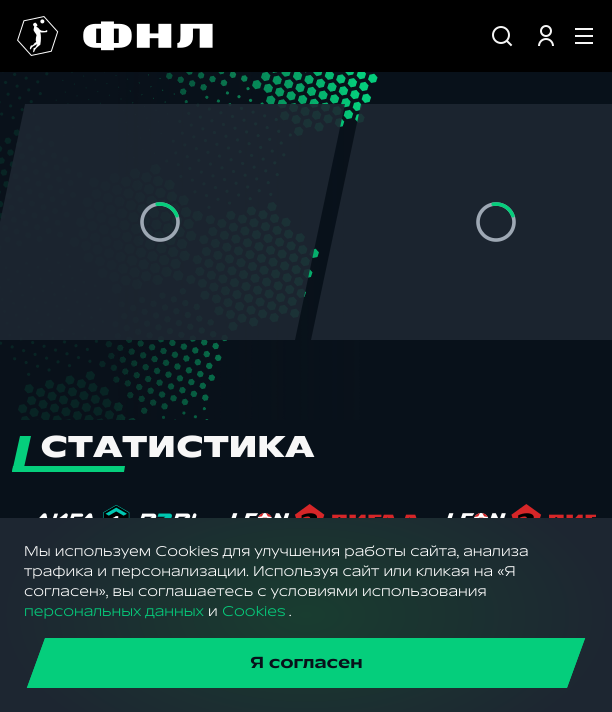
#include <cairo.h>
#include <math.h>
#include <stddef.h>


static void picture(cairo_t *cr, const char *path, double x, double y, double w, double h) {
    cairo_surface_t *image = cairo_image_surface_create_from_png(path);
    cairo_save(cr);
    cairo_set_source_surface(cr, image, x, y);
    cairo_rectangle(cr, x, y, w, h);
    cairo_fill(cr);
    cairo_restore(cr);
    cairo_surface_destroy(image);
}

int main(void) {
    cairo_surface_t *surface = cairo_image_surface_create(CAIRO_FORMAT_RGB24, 612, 712);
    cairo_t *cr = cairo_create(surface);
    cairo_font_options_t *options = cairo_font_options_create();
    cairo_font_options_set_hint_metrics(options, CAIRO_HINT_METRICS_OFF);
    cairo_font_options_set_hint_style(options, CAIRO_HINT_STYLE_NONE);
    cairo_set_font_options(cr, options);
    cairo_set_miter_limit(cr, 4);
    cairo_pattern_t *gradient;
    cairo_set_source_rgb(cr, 0.035, 0.067, 0.102);
    cairo_paint(cr);
    picture(cr, "img1.png", 0, 72, 378, 348);
    cairo_set_source_rgb(cr, 0, 0, 0);
    cairo_rectangle(cr, 0, 0, 612, 72);
    cairo_fill(cr);
    picture(cr, "img2.png", 17, 16, 42, 40);
    picture(cr, "img3.png", 83, 21, 130, 30);
    picture(cr, "img4.png", 492, 26, 21, 21);
    picture(cr, "img5.png", 538, 25, 16, 21);
    picture(cr, "img6.png", 575, 28, 18, 16);
    cairo_set_source_rgba(cr, 0.114, 0.149, 0.192, 0.9);
    cairo_new_path(cr);
    cairo_move_to(cr, 25, 104);
    cairo_line_to(cr, 345, 104);
    cairo_line_to(cr, 295, 340);
    cairo_line_to(cr, -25, 340);
    cairo_close_path(cr);
    cairo_fill(cr);
    picture(cr, "img7.png", 140, 202, 40, 40);
    cairo_new_path(cr);
    cairo_move_to(cr, 361, 104);
    cairo_line_to(cr, 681, 104);
    cairo_line_to(cr, 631, 340);
    cairo_line_to(cr, 311, 340);
    cairo_close_path(cr);
    cairo_fill(cr);
    picture(cr, "img8.png", 476, 202, 40, 40);
    cairo_select_font_face(cr, "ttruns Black", CAIRO_FONT_SLANT_NORMAL, CAIRO_FONT_WEIGHT_NORMAL);
    cairo_set_font_size(cr, 30);
    cairo_set_source_rgb(cr, 0.965, 0.965, 0.965);
    cairo_move_to(cr, 40, 457);
    cairo_show_text(cr, "СТАТИСТИКА");
    cairo_set_source_rgb(cr, 0.02, 0.808, 0.486);
    cairo_new_path(cr);
    cairo_move_to(cr, 13, 466);
    cairo_line_to(cr, 125, 466);
    cairo_line_to(cr, 124, 472);
    cairo_line_to(cr, 12, 472);
    cairo_close_path(cr);
    cairo_fill(cr);
    cairo_new_path(cr);
    cairo_move_to(cr, 20, 436);
    cairo_line_to(cr, 31, 436);
    cairo_line_to(cr, 23, 472);
    cairo_line_to(cr, 12, 472);
    cairo_close_path(cr);
    cairo_fill(cr);
    picture(cr, "img9.png", 39, 505, 158, 13);
    picture(cr, "img10.png", 231, 504, 186, 14);
    picture(cr, "img11.png", 447, 504, 149, 14);
    gradient = cairo_pattern_create_radial(0, 0, 0, 0, 0, 1);
    cairo_pattern_set_matrix(gradient, &(cairo_matrix_t){1.0 / 306, 0, 0, 1.0 / 159, -1.0 * 306 / 306, -1.0 * 615 / 159});
    cairo_pattern_add_color_stop_rgba(gradient, 0, 0.098, 0.239, 0.188, 1);
    cairo_pattern_add_color_stop_rgba(gradient, 1, 0.114, 0.149, 0.192, 1);
    cairo_set_source(cr, gradient);
    cairo_pattern_destroy(gradient);
    cairo_rectangle(cr, 0, 518, 612, 194);
    cairo_fill(cr);
    cairo_select_font_face(cr, "ttruns", CAIRO_FONT_SLANT_NORMAL, CAIRO_FONT_WEIGHT_NORMAL);
    cairo_set_font_size(cr, 14);
    cairo_set_source_rgb(cr, 1, 1, 1);
    cairo_move_to(cr, 24, 556);
    cairo_show_text(cr, "Мы используем Cookies для улучшения работы сайта, анализа");
    cairo_move_to(cr, 24, 576);
    cairo_show_text(cr, "трафика и персонализации. Используя сайт или кликая на «Я");
    cairo_move_to(cr, 24, 596);
    cairo_show_text(cr, "согласен», вы соглашаетесь с условиями использования");
    cairo_set_source_rgb(cr, 0.02, 0.808, 0.486);
    cairo_move_to(cr, 24, 616);
    cairo_show_text(cr, "персональных данных");
    cairo_set_source_rgb(cr, 1, 1, 1);
    cairo_move_to(cr, 208, 616);
    cairo_show_text(cr, "и");
    cairo_set_source_rgb(cr, 0.02, 0.808, 0.486);
    cairo_move_to(cr, 222, 616);
    cairo_show_text(cr, "Cookies");
    cairo_set_source_rgb(cr, 1, 1, 1);
    cairo_move_to(cr, 289, 616);
    cairo_show_text(cr, ".");
    cairo_set_source_rgb(cr, 0.02, 0.808, 0.486);
    cairo_new_path(cr);
    cairo_move_to(cr, 45, 638);
    cairo_line_to(cr, 585, 638);
    cairo_line_to(cr, 567, 688);
    cairo_line_to(cr, 27, 688);
    cairo_close_path(cr);
    cairo_fill(cr);
    cairo_new_path(cr);
    cairo_move_to(cr, 45.5, 638.5);
    cairo_line_to(cr, 584.5, 638.5);
    cairo_line_to(cr, 566.5, 687.5);
    cairo_line_to(cr, 27.5, 687.5);
    cairo_close_path(cr);
    cairo_set_line_width(cr, 1);
    cairo_stroke(cr);
    cairo_select_font_face(cr, "ttruns", CAIRO_FONT_SLANT_NORMAL, CAIRO_FONT_WEIGHT_BOLD);
    cairo_set_font_size(cr, 16);
    cairo_set_source_rgb(cr, 0.035, 0.067, 0.102);
    cairo_move_to(cr, 250, 668);
    cairo_show_text(cr, "Я согласен");
    cairo_surface_write_to_png(surface, "page.png");
    cairo_font_options_destroy(options);
    cairo_destroy(cr);
    cairo_surface_destroy(surface);
    return 0;
}
